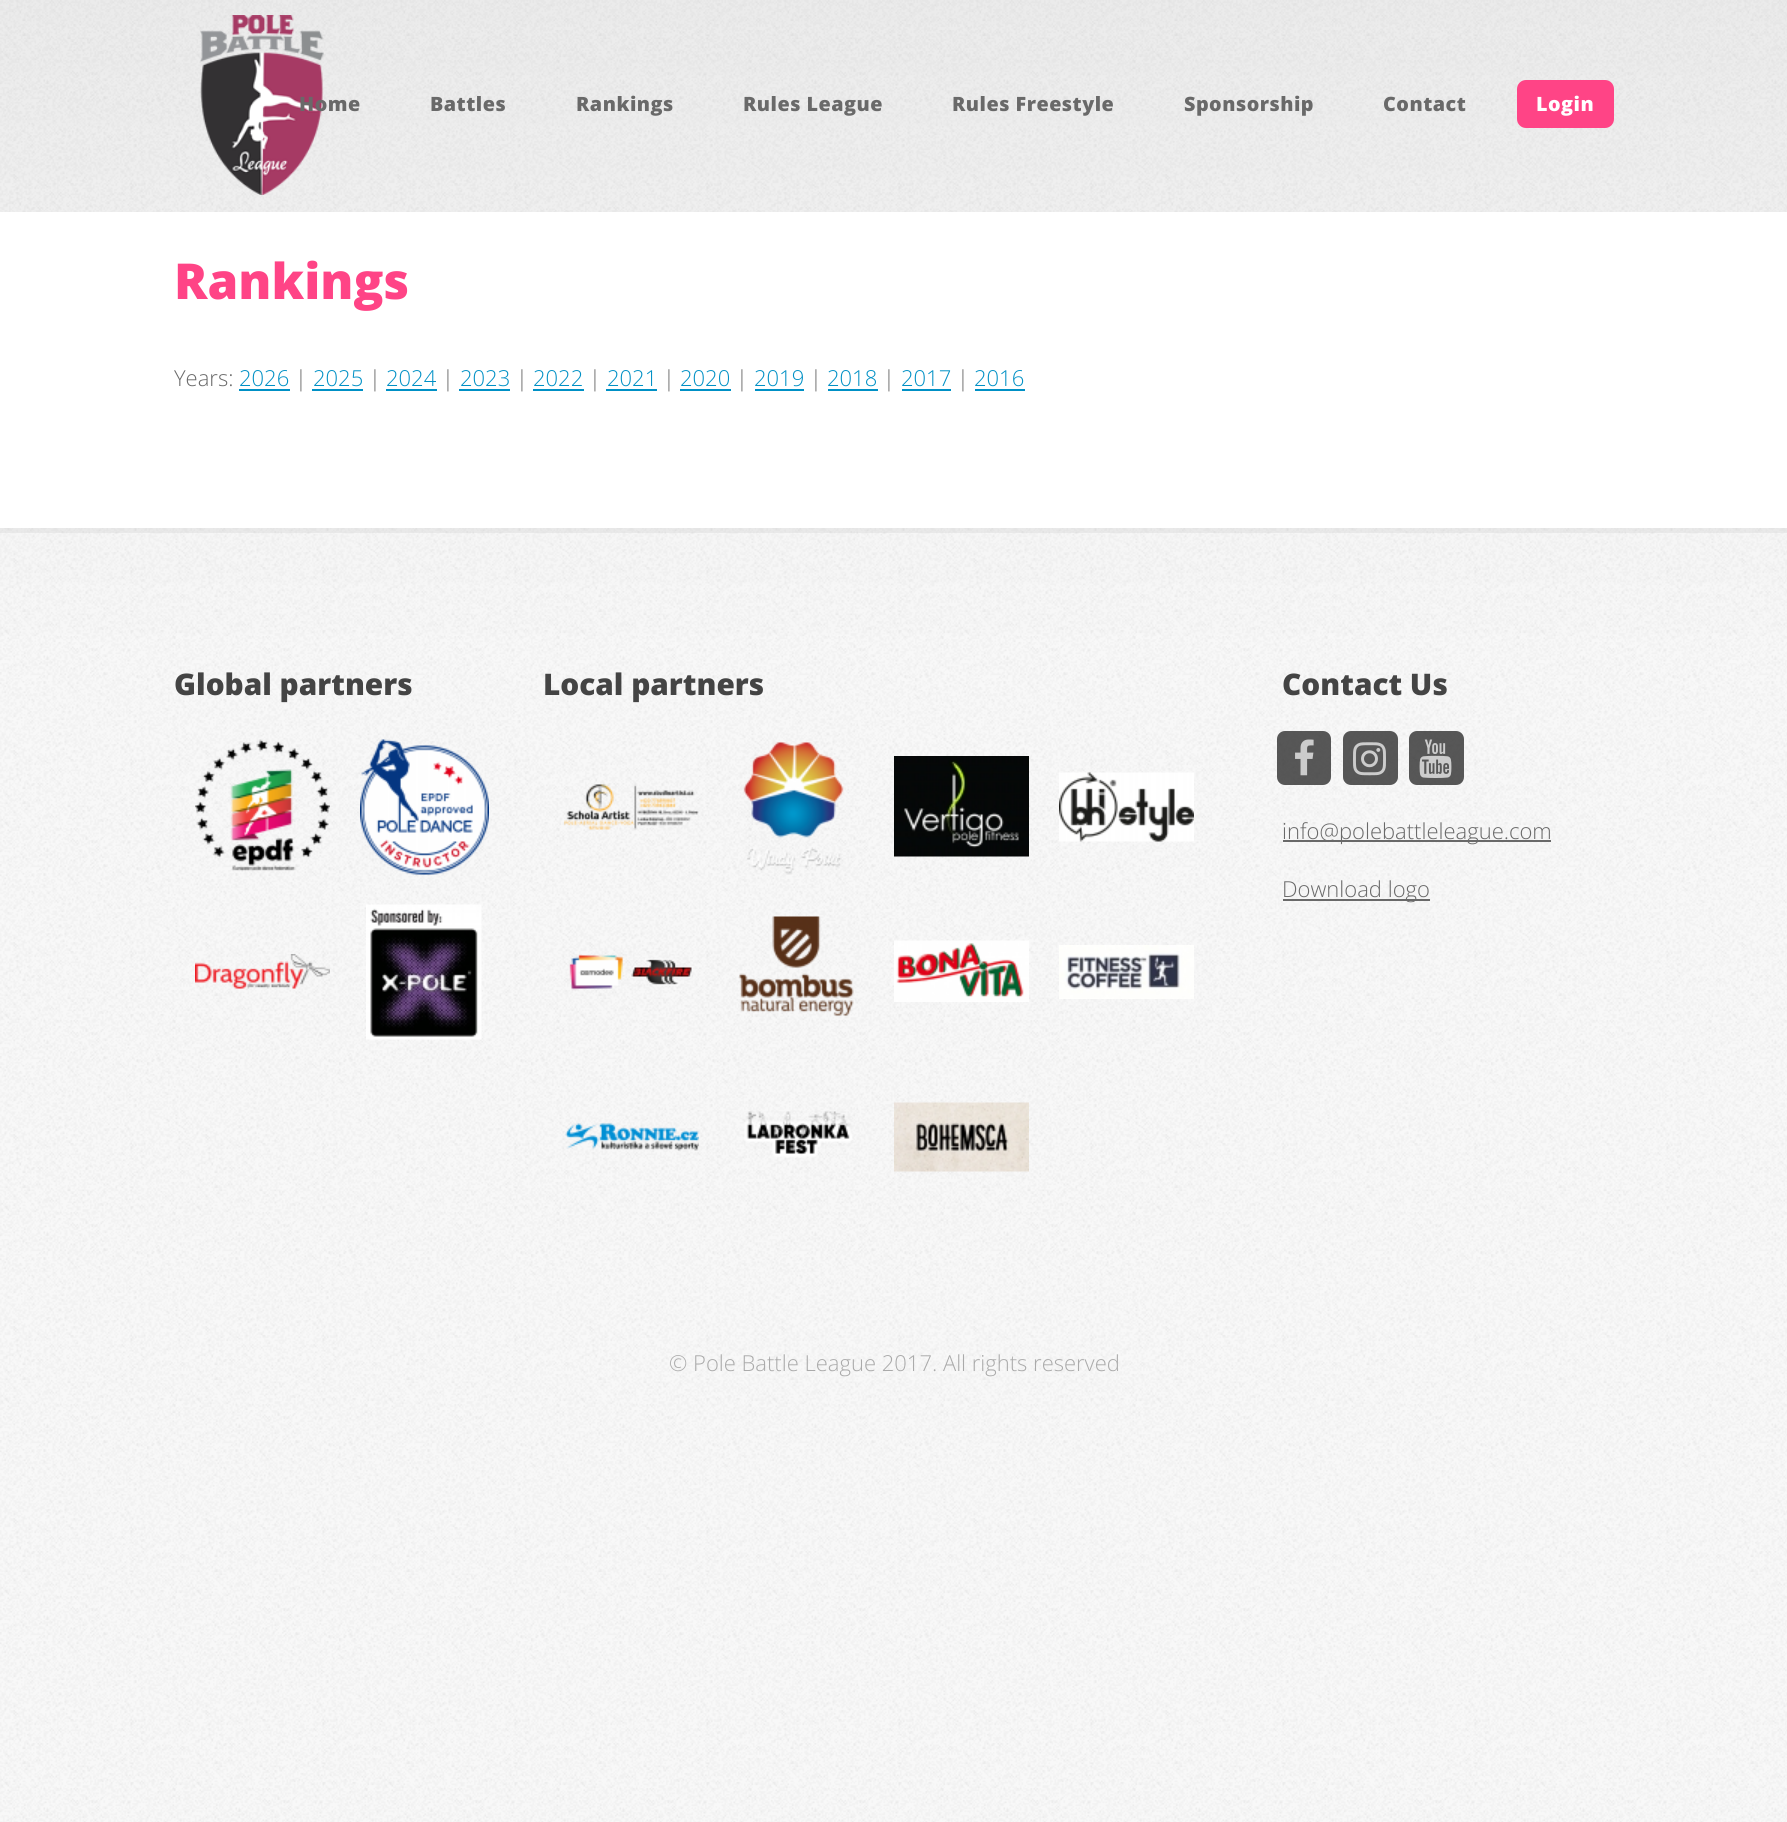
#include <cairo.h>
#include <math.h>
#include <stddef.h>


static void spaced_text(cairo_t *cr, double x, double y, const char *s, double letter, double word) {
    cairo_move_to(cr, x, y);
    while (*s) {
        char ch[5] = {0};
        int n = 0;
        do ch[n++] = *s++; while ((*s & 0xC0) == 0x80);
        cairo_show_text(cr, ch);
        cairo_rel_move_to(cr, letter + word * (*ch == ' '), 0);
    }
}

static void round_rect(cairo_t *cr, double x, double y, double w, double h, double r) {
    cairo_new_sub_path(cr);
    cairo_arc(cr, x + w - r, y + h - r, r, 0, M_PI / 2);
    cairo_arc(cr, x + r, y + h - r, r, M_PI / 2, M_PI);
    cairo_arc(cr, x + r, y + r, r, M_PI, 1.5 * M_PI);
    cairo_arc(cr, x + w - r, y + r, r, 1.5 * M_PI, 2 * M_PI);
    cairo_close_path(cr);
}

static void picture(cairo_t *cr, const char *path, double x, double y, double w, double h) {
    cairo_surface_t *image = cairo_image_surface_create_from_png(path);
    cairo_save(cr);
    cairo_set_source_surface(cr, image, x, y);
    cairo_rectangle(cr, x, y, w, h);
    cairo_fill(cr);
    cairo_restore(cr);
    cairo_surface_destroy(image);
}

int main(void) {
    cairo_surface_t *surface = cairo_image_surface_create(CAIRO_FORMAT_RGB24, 1787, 1822);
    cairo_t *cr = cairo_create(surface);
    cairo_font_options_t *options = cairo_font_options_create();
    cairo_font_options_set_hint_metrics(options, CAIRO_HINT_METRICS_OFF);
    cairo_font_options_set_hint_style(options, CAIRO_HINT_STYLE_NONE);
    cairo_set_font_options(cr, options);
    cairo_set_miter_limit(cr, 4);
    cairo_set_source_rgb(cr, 0.969, 0.969, 0.969);
    cairo_paint(cr);
    picture(cr, "img1.png", 0, 0, 1787, 1822);
    picture(cr, "img2.png", 200, 15, 124, 180);
    cairo_select_font_face(cr, "Open Sans ExtraBold", CAIRO_FONT_SLANT_NORMAL, CAIRO_FONT_WEIGHT_NORMAL);
    cairo_set_font_size(cr, 19.75);
    cairo_set_source_rgb(cr, 0.412, 0.412, 0.412);
    spaced_text(cr, 299, 111, "Home", 0.5, 0);
    spaced_text(cr, 430, 111, "Battles", 0.5, 0);
    spaced_text(cr, 576, 111, "Rankings", 0.5, 0);
    spaced_text(cr, 743, 111, "Rules League", 0.5, 0);
    spaced_text(cr, 952, 111, "Rules Freestyle", 0.5, 0);
    spaced_text(cr, 1184, 111, "Sponsorship", 0.5, 0);
    spaced_text(cr, 1383, 111, "Contact", 0.5, 0);
    cairo_set_source_rgb(cr, 1, 0.267, 0.525);
    round_rect(cr, 1517, 80, 97, 48, 9);
    cairo_fill(cr);
    cairo_set_source_rgb(cr, 1, 1, 1);
    spaced_text(cr, 1536, 111, "Login", 0.5, 0);
    cairo_set_source_rgba(cr, 0, 0, 0, 0.05);
    cairo_rectangle(cr, 0, 528, 1787, 5);
    cairo_fill(cr);
    cairo_set_source_rgb(cr, 1, 1, 1);
    cairo_rectangle(cr, 0, 212, 1787, 316);
    cairo_fill(cr);
    cairo_set_font_size(cr, 49.5);
    cairo_set_source_rgb(cr, 1, 0.267, 0.525);
    cairo_move_to(cr, 174, 299);
    cairo_show_text(cr, "Rankings");
    cairo_select_font_face(cr, "Open Sans Light", CAIRO_FONT_SLANT_NORMAL, CAIRO_FONT_WEIGHT_NORMAL);
    cairo_set_font_size(cr, 22);
    cairo_set_source_rgb(cr, 0.412, 0.412, 0.412);
    cairo_move_to(cr, 174, 386);
    cairo_show_text(cr, "Years:");
    cairo_set_source_rgb(cr, 0, 0.565, 0.773);
    cairo_move_to(cr, 239, 386);
    cairo_show_text(cr, "2026");
    cairo_rectangle(cr, 239, 389, 51, 2);
    cairo_fill(cr);
    cairo_set_source_rgb(cr, 0.412, 0.412, 0.412);
    cairo_move_to(cr, 295, 386);
    cairo_show_text(cr, "|");
    cairo_set_source_rgb(cr, 0, 0.565, 0.773);
    cairo_move_to(cr, 313, 386);
    cairo_show_text(cr, "2025");
    cairo_rectangle(cr, 312, 389, 51, 2);
    cairo_fill(cr);
    cairo_set_source_rgb(cr, 0.412, 0.412, 0.412);
    cairo_move_to(cr, 369, 386);
    cairo_show_text(cr, "|");
    cairo_set_source_rgb(cr, 0, 0.565, 0.773);
    cairo_move_to(cr, 386, 386);
    cairo_show_text(cr, "2024");
    cairo_rectangle(cr, 386, 389, 51, 2);
    cairo_fill(cr);
    cairo_set_source_rgb(cr, 0.412, 0.412, 0.412);
    cairo_move_to(cr, 442, 386);
    cairo_show_text(cr, "|");
    cairo_set_source_rgb(cr, 0, 0.565, 0.773);
    cairo_move_to(cr, 460, 386);
    cairo_show_text(cr, "2023");
    cairo_rectangle(cr, 459, 389, 51, 2);
    cairo_fill(cr);
    cairo_set_source_rgb(cr, 0.412, 0.412, 0.412);
    cairo_move_to(cr, 516, 386);
    cairo_show_text(cr, "|");
    cairo_set_source_rgb(cr, 0, 0.565, 0.773);
    cairo_move_to(cr, 533, 386);
    cairo_show_text(cr, "2022");
    cairo_rectangle(cr, 533, 389, 51, 2);
    cairo_fill(cr);
    cairo_set_source_rgb(cr, 0.412, 0.412, 0.412);
    cairo_move_to(cr, 589, 386);
    cairo_show_text(cr, "|");
    cairo_set_source_rgb(cr, 0, 0.565, 0.773);
    cairo_move_to(cr, 607, 386);
    cairo_show_text(cr, "2021");
    cairo_rectangle(cr, 606, 389, 51, 2);
    cairo_fill(cr);
    cairo_set_source_rgb(cr, 0.412, 0.412, 0.412);
    cairo_move_to(cr, 663, 386);
    cairo_show_text(cr, "|");
    cairo_set_source_rgb(cr, 0, 0.565, 0.773);
    cairo_move_to(cr, 680, 386);
    cairo_show_text(cr, "2020");
    cairo_rectangle(cr, 680, 389, 51, 2);
    cairo_fill(cr);
    cairo_set_source_rgb(cr, 0.412, 0.412, 0.412);
    cairo_move_to(cr, 736, 386);
    cairo_show_text(cr, "|");
    cairo_set_source_rgb(cr, 0, 0.565, 0.773);
    cairo_move_to(cr, 754, 386);
    cairo_show_text(cr, "2019");
    cairo_rectangle(cr, 755, 389, 49, 2);
    cairo_fill(cr);
    cairo_set_source_rgb(cr, 0.412, 0.412, 0.412);
    cairo_move_to(cr, 810, 386);
    cairo_show_text(cr, "|");
    cairo_set_source_rgb(cr, 0, 0.565, 0.773);
    cairo_move_to(cr, 827, 386);
    cairo_show_text(cr, "2018");
    cairo_rectangle(cr, 828, 389, 50, 2);
    cairo_fill(cr);
    cairo_set_source_rgb(cr, 0.412, 0.412, 0.412);
    cairo_move_to(cr, 883, 386);
    cairo_show_text(cr, "|");
    cairo_set_source_rgb(cr, 0, 0.565, 0.773);
    cairo_move_to(cr, 901, 386);
    cairo_show_text(cr, "2017");
    cairo_rectangle(cr, 902, 389, 49, 2);
    cairo_fill(cr);
    cairo_set_source_rgb(cr, 0.412, 0.412, 0.412);
    cairo_move_to(cr, 957, 386);
    cairo_show_text(cr, "|");
    cairo_set_source_rgb(cr, 0, 0.565, 0.773);
    cairo_move_to(cr, 974, 386);
    cairo_show_text(cr, "2016");
    cairo_rectangle(cr, 975, 389, 50, 2);
    cairo_fill(cr);
    cairo_select_font_face(cr, "Open Sans ExtraBold", CAIRO_FONT_SLANT_NORMAL, CAIRO_FONT_WEIGHT_NORMAL);
    cairo_set_font_size(cr, 29.75);
    cairo_set_source_rgb(cr, 0.267, 0.267, 0.267);
    cairo_move_to(cr, 174, 695);
    cairo_show_text(cr, "Global partners");
    picture(cr, "img3.png", 195, 739, 135, 133);
    picture(cr, "img4.png", 360, 739, 129, 136);
    picture(cr, "img5.png", 195, 954, 135, 35);
    picture(cr, "img6.png", 366, 904, 116, 136);
    cairo_move_to(cr, 543, 695);
    cairo_show_text(cr, "Local partners");
    picture(cr, "img7.png", 564, 784, 135, 46);
    picture(cr, "img8.png", 743, 741, 101, 134);
    picture(cr, "img9.png", 894, 756, 135, 101);
    picture(cr, "img10.png", 1059, 772, 135, 70);
    picture(cr, "img11.png", 569, 954, 124, 37);
    picture(cr, "img12.png", 739, 916, 115, 100);
    picture(cr, "img13.png", 894, 940, 135, 62);
    picture(cr, "img14.png", 1059, 945, 135, 54);
    picture(cr, "img15.png", 565, 1123, 134, 28);
    picture(cr, "img16.png", 744, 1111, 109, 47);
    picture(cr, "img17.png", 894, 1102, 135, 70);
    cairo_move_to(cr, 1282, 695);
    cairo_show_text(cr, "Contact Us");
    cairo_set_source_rgba(cr, 0.133, 0.133, 0.133, 0.75);
    round_rect(cr, 1277, 731, 54, 54, 8);
    cairo_fill(cr);
    picture(cr, "img18.png", 1295, 739, 19, 37);
    round_rect(cr, 1343, 731, 55, 54, 8);
    cairo_fill(cr);
    picture(cr, "img19.png", 1353, 742, 33, 34);
    round_rect(cr, 1409, 731, 55, 54, 8);
    cairo_fill(cr);
    picture(cr, "img20.png", 1419, 739, 33, 39);
    cairo_set_source_rgb(cr, 0.412, 0.412, 0.412);
    cairo_rectangle(cr, 1283, 840, 268, 2);
    cairo_fill(cr);
    cairo_select_font_face(cr, "Open Sans Light", CAIRO_FONT_SLANT_NORMAL, CAIRO_FONT_WEIGHT_NORMAL);
    cairo_set_font_size(cr, 22);
    cairo_move_to(cr, 1282, 839);
    cairo_show_text(cr, "info@polebattleleague.com");
    cairo_rectangle(cr, 1283, 899, 147, 2);
    cairo_fill(cr);
    cairo_move_to(cr, 1282, 897);
    cairo_show_text(cr, "Download logo");
    cairo_set_source_rgb(cr, 0.667, 0.667, 0.667);
    cairo_move_to(cr, 669, 1371);
    cairo_show_text(cr, "© Pole Battle League 2017. All rights reserved");
    cairo_surface_write_to_png(surface, "page.png");
    cairo_font_options_destroy(options);
    cairo_destroy(cr);
    cairo_surface_destroy(surface);
    return 0;
}
